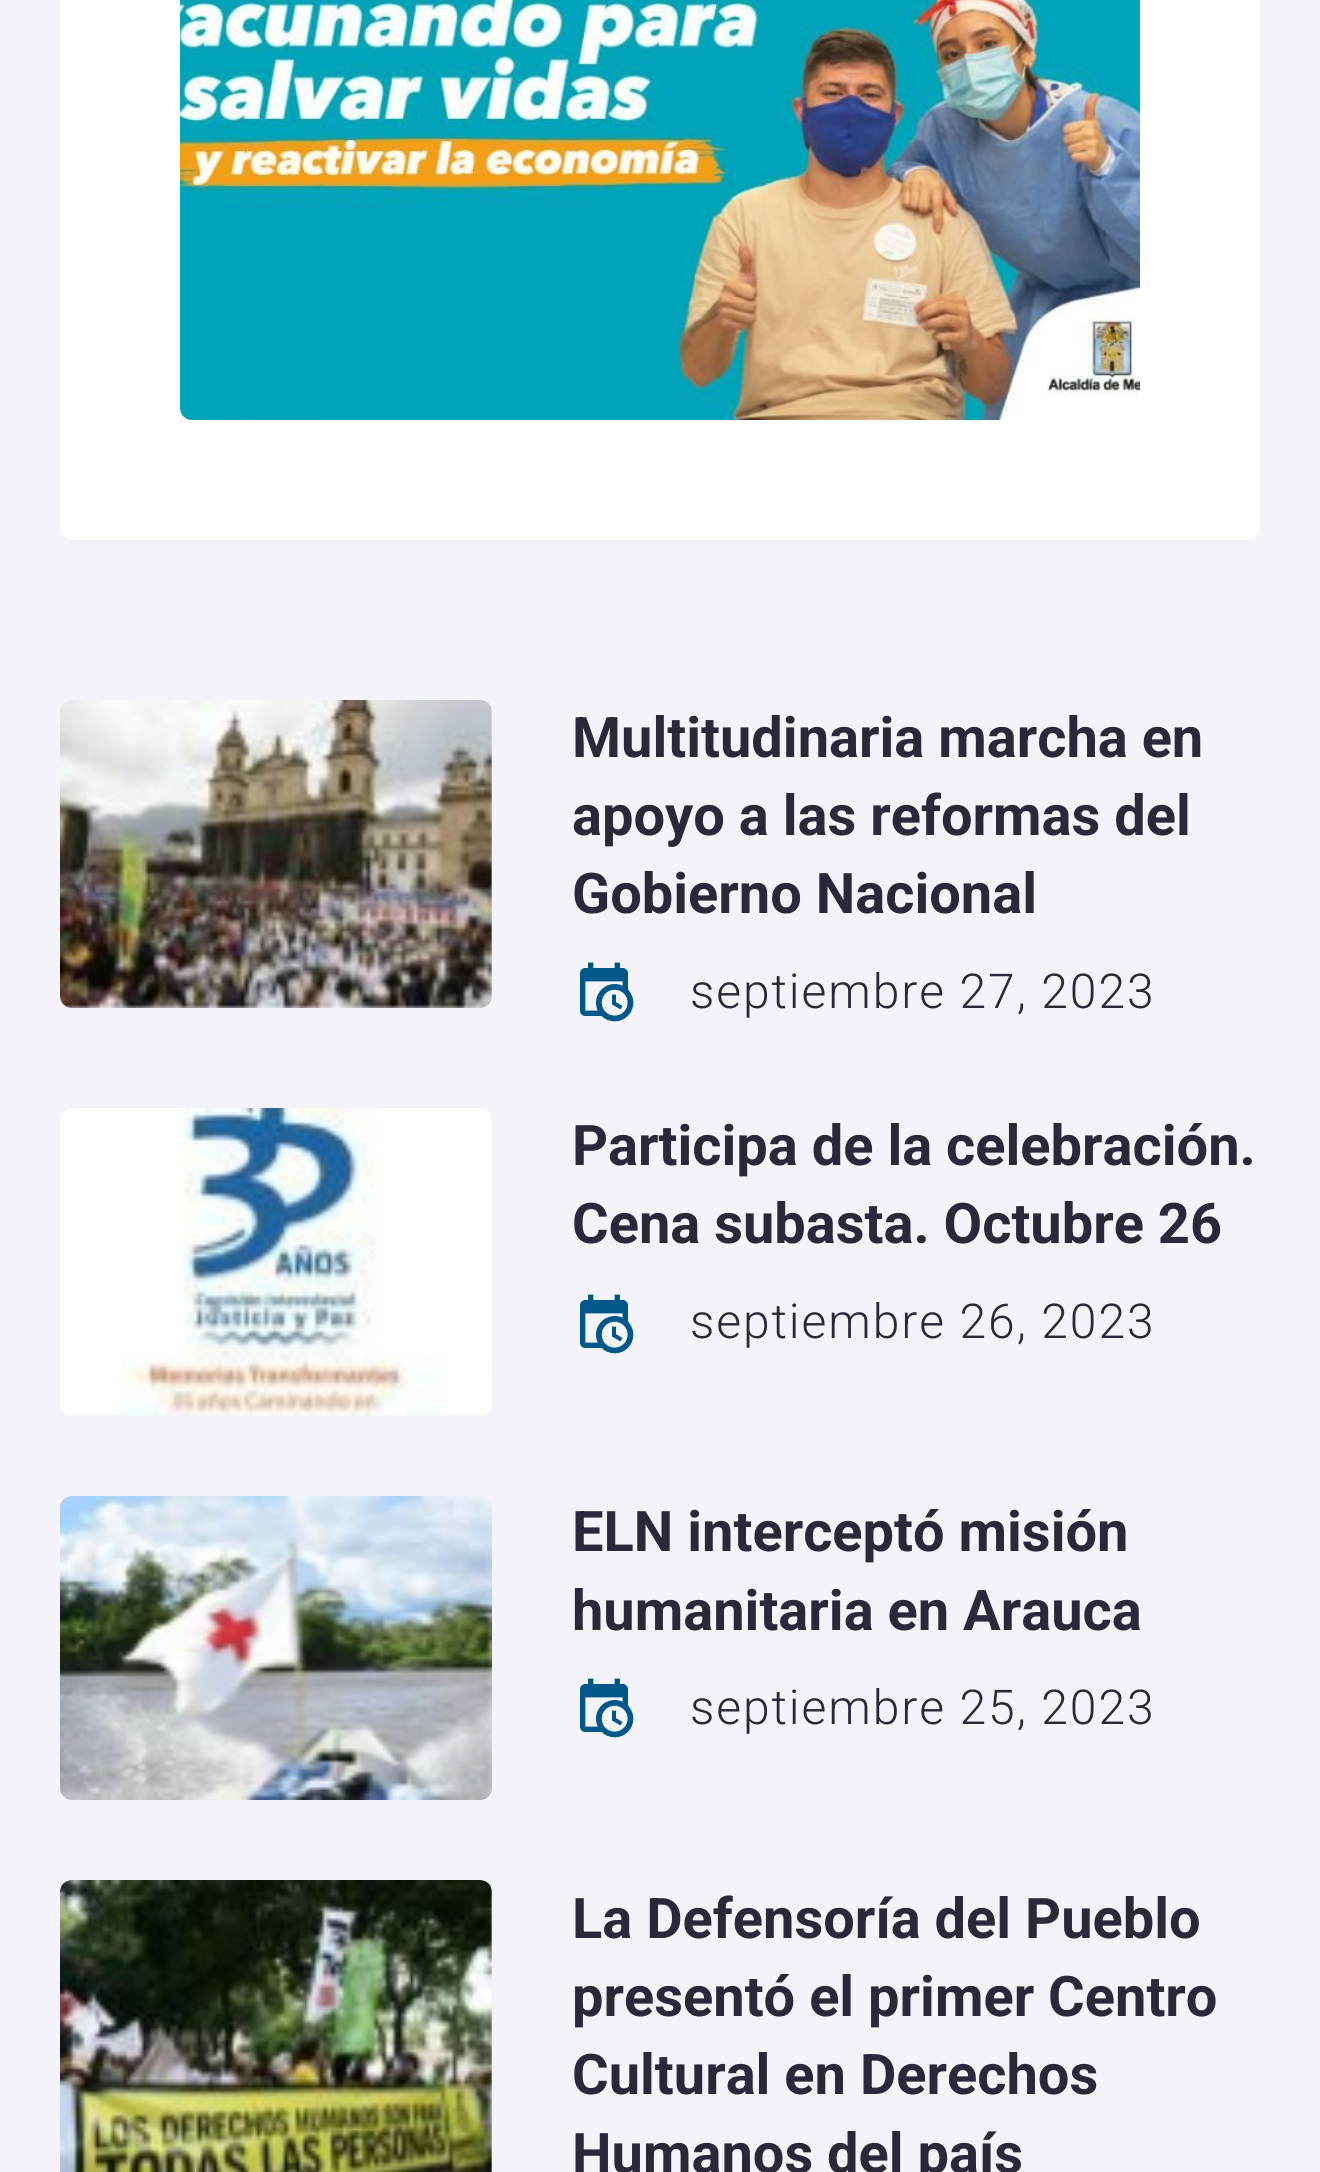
#include <cairo.h>
#include <math.h>
#include <stddef.h>


static void spaced_text(cairo_t *cr, double x, double y, const char *s, double letter, double word) {
    cairo_move_to(cr, x, y);
    while (*s) {
        char ch[5] = {0};
        int n = 0;
        do ch[n++] = *s++; while ((*s & 0xC0) == 0x80);
        cairo_show_text(cr, ch);
        cairo_rel_move_to(cr, letter + word * (*ch == ' '), 0);
    }
}

static void round_rect(cairo_t *cr, double x, double y, double w, double h, double r) {
    cairo_new_sub_path(cr);
    cairo_arc(cr, x + w - r, y + h - r, r, 0, M_PI / 2);
    cairo_arc(cr, x + r, y + h - r, r, M_PI / 2, M_PI);
    cairo_arc(cr, x + r, y + r, r, M_PI, 1.5 * M_PI);
    cairo_arc(cr, x + w - r, y + r, r, 1.5 * M_PI, 2 * M_PI);
    cairo_close_path(cr);
}

static void picture(cairo_t *cr, const char *path, double x, double y, double w, double h) {
    cairo_surface_t *image = cairo_image_surface_create_from_png(path);
    cairo_save(cr);
    cairo_set_source_surface(cr, image, x, y);
    cairo_rectangle(cr, x, y, w, h);
    cairo_fill(cr);
    cairo_restore(cr);
    cairo_surface_destroy(image);
}

int main(void) {
    cairo_surface_t *surface = cairo_image_surface_create(CAIRO_FORMAT_RGB24, 1320, 2172);
    cairo_t *cr = cairo_create(surface);
    cairo_font_options_t *options = cairo_font_options_create();
    cairo_font_options_set_hint_metrics(options, CAIRO_HINT_METRICS_OFF);
    cairo_font_options_set_hint_style(options, CAIRO_HINT_STYLE_NONE);
    cairo_set_font_options(cr, options);
    cairo_set_miter_limit(cr, 4);
    cairo_set_source_rgb(cr, 0.953, 0.953, 0.976);
    cairo_paint(cr);
    cairo_set_source_rgb(cr, 1, 1, 1);
    round_rect(cr, 60, -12, 1200, 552, 12);
    cairo_fill(cr);
    picture(cr, "img1.png", 180, 0, 960, 420);
    picture(cr, "img2.png", 60, 700, 432, 308);
    cairo_select_font_face(cr, "Roboto", CAIRO_FONT_SLANT_NORMAL, CAIRO_FONT_WEIGHT_BOLD);
    cairo_set_font_size(cr, 56);
    cairo_set_source_rgb(cr, 0.161, 0.161, 0.227);
    cairo_move_to(cr, 572, 757);
    cairo_show_text(cr, "Multitudinaria marcha en");
    cairo_move_to(cr, 572, 835);
    cairo_show_text(cr, "apoyo a las reformas del");
    cairo_move_to(cr, 572, 913);
    cairo_show_text(cr, "Gobierno Nacional");
    picture(cr, "img3.png", 580, 962, 54, 60);
    cairo_select_font_face(cr, "Roboto Light", CAIRO_FONT_SLANT_NORMAL, CAIRO_FONT_WEIGHT_NORMAL);
    cairo_set_font_size(cr, 48);
    spaced_text(cr, 690, 1008, "septiembre 27, 2023", 1.9, 0);
    picture(cr, "img4.png", 60, 1108, 432, 308);
    cairo_select_font_face(cr, "Roboto", CAIRO_FONT_SLANT_NORMAL, CAIRO_FONT_WEIGHT_BOLD);
    cairo_set_font_size(cr, 56);
    cairo_move_to(cr, 572, 1165);
    cairo_show_text(cr, "Participa de la celebración.");
    cairo_move_to(cr, 572, 1243);
    cairo_show_text(cr, "Cena subasta. Octubre 26");
    picture(cr, "img3.png", 580, 1294, 54, 60);
    cairo_select_font_face(cr, "Roboto Light", CAIRO_FONT_SLANT_NORMAL, CAIRO_FONT_WEIGHT_NORMAL);
    cairo_set_font_size(cr, 48);
    spaced_text(cr, 690, 1338, "septiembre 26, 2023", 1.9, 0);
    picture(cr, "img5.png", 60, 1496, 432, 304);
    cairo_select_font_face(cr, "Roboto", CAIRO_FONT_SLANT_NORMAL, CAIRO_FONT_WEIGHT_BOLD);
    cairo_set_font_size(cr, 56);
    cairo_move_to(cr, 572, 1551);
    cairo_show_text(cr, "ELN interceptó misión");
    cairo_move_to(cr, 572, 1630);
    cairo_show_text(cr, "humanitaria en Arauca");
    picture(cr, "img3.png", 580, 1678, 54, 60);
    cairo_select_font_face(cr, "Roboto Light", CAIRO_FONT_SLANT_NORMAL, CAIRO_FONT_WEIGHT_NORMAL);
    cairo_set_font_size(cr, 48);
    spaced_text(cr, 690, 1724, "septiembre 25, 2023", 1.9, 0);
    picture(cr, "img6.png", 60, 1880, 432, 292);
    cairo_select_font_face(cr, "Roboto", CAIRO_FONT_SLANT_NORMAL, CAIRO_FONT_WEIGHT_BOLD);
    cairo_set_font_size(cr, 56);
    cairo_move_to(cr, 572, 1938);
    cairo_show_text(cr, "La Defensoría del Pueblo");
    cairo_move_to(cr, 572, 2016);
    cairo_show_text(cr, "presentó el primer Centro");
    cairo_move_to(cr, 572, 2094);
    cairo_show_text(cr, "Cultural en Derechos");
    cairo_move_to(cr, 572, 2173);
    cairo_show_text(cr, "Humanos del país");
    cairo_surface_write_to_png(surface, "page.png");
    cairo_font_options_destroy(options);
    cairo_destroy(cr);
    cairo_surface_destroy(surface);
    return 0;
}
